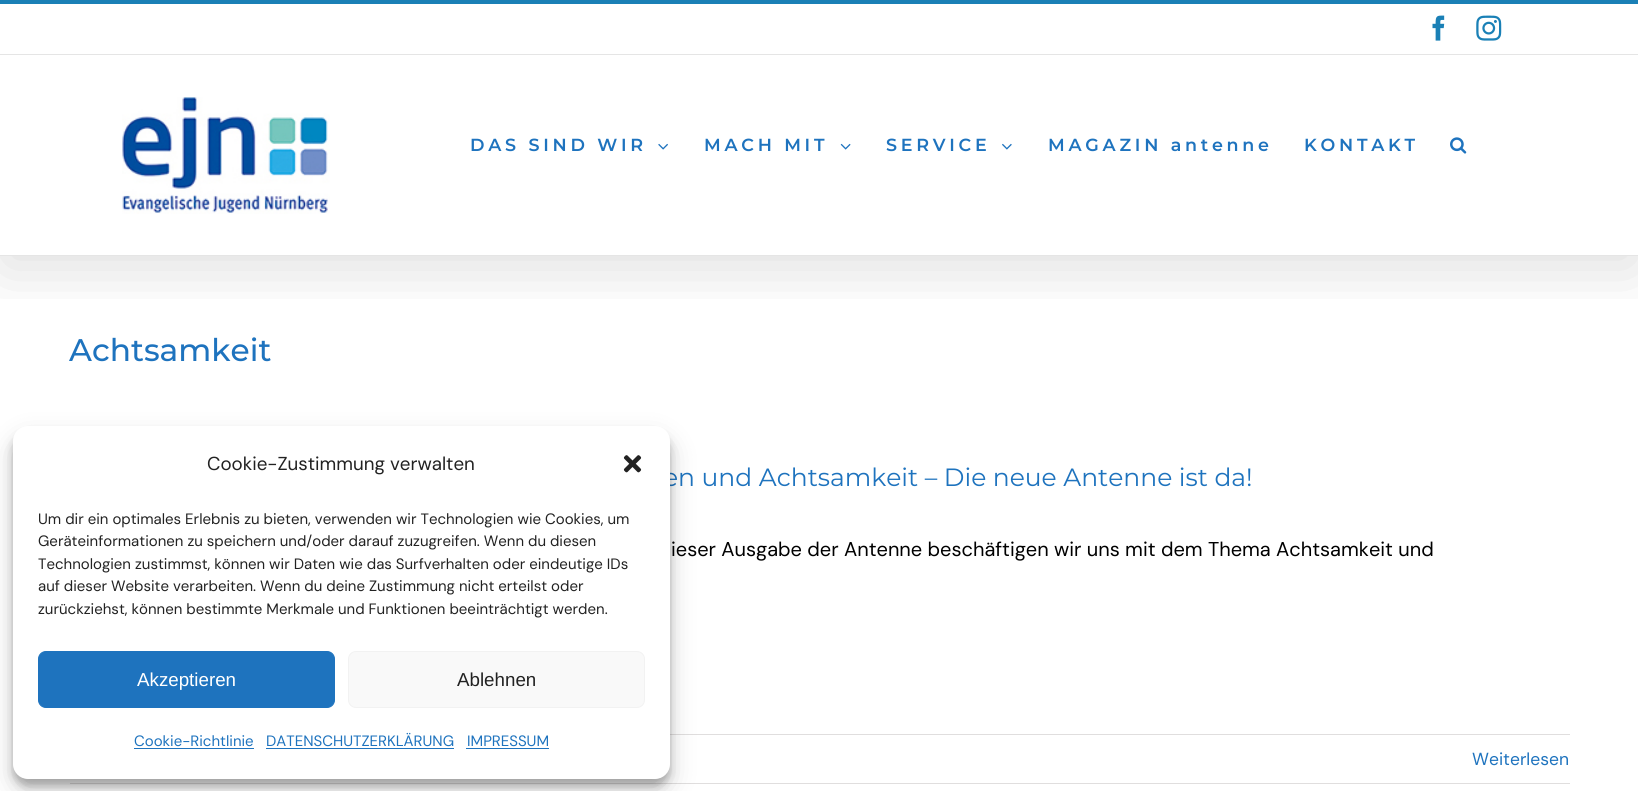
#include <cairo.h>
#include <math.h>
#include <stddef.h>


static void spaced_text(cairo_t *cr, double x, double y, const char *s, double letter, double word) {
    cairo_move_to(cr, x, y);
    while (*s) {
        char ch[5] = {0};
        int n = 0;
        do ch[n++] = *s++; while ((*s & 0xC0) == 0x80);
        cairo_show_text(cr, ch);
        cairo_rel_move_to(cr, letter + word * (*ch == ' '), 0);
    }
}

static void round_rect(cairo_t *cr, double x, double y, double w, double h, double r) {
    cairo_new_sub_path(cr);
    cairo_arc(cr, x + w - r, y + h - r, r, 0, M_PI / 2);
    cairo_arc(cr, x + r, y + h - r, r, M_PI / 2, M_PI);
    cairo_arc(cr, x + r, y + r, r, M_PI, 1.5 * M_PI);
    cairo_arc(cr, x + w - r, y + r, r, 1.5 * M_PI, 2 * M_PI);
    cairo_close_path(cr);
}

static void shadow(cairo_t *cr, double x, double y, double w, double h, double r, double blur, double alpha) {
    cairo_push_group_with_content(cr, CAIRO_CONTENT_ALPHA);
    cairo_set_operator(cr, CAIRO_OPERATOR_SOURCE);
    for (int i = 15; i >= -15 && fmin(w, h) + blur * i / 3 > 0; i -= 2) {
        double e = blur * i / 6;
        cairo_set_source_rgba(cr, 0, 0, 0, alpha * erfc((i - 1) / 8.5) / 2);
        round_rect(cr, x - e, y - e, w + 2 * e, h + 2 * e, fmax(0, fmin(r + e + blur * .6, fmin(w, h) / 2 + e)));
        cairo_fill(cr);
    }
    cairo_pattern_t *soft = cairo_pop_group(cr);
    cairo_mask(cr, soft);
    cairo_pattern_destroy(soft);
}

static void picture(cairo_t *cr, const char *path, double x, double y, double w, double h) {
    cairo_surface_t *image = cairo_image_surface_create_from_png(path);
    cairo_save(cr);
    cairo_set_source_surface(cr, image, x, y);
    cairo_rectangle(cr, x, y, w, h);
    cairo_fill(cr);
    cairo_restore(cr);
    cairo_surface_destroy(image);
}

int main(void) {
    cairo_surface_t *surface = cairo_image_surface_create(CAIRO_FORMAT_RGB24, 1638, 791);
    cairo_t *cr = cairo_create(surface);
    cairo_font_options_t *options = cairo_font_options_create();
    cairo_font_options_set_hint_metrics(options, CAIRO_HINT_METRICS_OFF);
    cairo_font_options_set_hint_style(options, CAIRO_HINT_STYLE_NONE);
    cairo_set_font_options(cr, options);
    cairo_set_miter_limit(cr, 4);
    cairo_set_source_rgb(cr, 1, 1, 1);
    cairo_paint(cr);
    cairo_save(cr);
    cairo_rectangle(cr, 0, 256, 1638, 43);
    cairo_clip(cr);
    cairo_set_source_rgb(cr, 0, 0, 0);
    shadow(cr, 3, 15, 1633, 251, 0, 31, 0.14);
    cairo_restore(cr);
    cairo_set_source_rgb(cr, 0.102, 0.502, 0.714);
    cairo_rectangle(cr, 0, 0, 1638, 4);
    cairo_fill(cr);
    cairo_set_source_rgb(cr, 0.898, 0.898, 0.898);
    cairo_rectangle(cr, 0, 54, 1638, 1);
    cairo_fill(cr);
    picture(cr, "img1.png", 1432, 15, 13, 26);
    picture(cr, "img2.png", 1476, 15, 26, 26);
    cairo_rectangle(cr, 0, 255, 1638, 1);
    cairo_fill(cr);
    picture(cr, "img3.png", 122, 97, 208, 117);
    cairo_select_font_face(cr, "Montserrat SemiBold", CAIRO_FONT_SLANT_NORMAL, CAIRO_FONT_WEIGHT_NORMAL);
    cairo_set_font_size(cr, 17.5);
    cairo_set_source_rgb(cr, 0.118, 0.451, 0.745);
    spaced_text(cr, 470, 151, "DAS SIND WIR", 3.75, 0);
    picture(cr, "img4.png", 658, 143, 10, 7);
    spaced_text(cr, 704, 151, "MACH MIT", 3.75, 0);
    picture(cr, "img5.png", 840, 143, 11, 7);
    spaced_text(cr, 886, 151, "SERVICE", 3.75, 0);
    picture(cr, "img6.png", 1002, 143, 10, 7);
    spaced_text(cr, 1048, 151, "MAGAZIN antenne", 3.75, 0);
    spaced_text(cr, 1304, 151, "KONTAKT", 3.75, 0);
    picture(cr, "img7.png", 1450, 137, 17, 17);
    cairo_select_font_face(cr, "Montserrat Medium", CAIRO_FONT_SLANT_NORMAL, CAIRO_FONT_WEIGHT_NORMAL);
    cairo_set_font_size(cr, 31.25);
    cairo_move_to(cr, 69, 361);
    cairo_show_text(cr, "Achtsamkeit");
    cairo_select_font_face(cr, "Montserrat", CAIRO_FONT_SLANT_NORMAL, CAIRO_FONT_WEIGHT_NORMAL);
    cairo_set_font_size(cr, 25);
    cairo_move_to(cr, 663, 486);
    cairo_show_text(cr, "en und Achtsamkeit – Die neue Antenne ist da!");
    cairo_select_font_face(cr, "DM Sans", CAIRO_FONT_SLANT_NORMAL, CAIRO_FONT_WEIGHT_NORMAL);
    cairo_set_font_size(cr, 20);
    cairo_set_source_rgb(cr, 0, 0, 0);
    cairo_move_to(cr, 671, 556);
    cairo_show_text(cr, "ieser Ausgabe der Antenne beschäftigen wir uns mit dem Thema Achtsamkeit und");
    cairo_set_source_rgb(cr, 0.878, 0.871, 0.871);
    cairo_rectangle(cr, 670, 734, 900, 1);
    cairo_fill(cr);
    cairo_rectangle(cr, 70, 783, 1500, 1);
    cairo_fill(cr);
    cairo_set_font_size(cr, 17.5);
    cairo_set_source_rgb(cr, 0.118, 0.451, 0.745);
    cairo_move_to(cr, 1472, 765);
    cairo_show_text(cr, "Weiterlesen");
    cairo_set_source_rgb(cr, 0, 0, 0);
    shadow(cr, 13, 434, 657, 352, 15, 4, 0.23);
    shadow(cr, 13, 439, 657, 352, 15, 12.5, 0.19);
    cairo_set_source_rgb(cr, 1, 1, 1);
    round_rect(cr, 13, 426, 657, 353, 15);
    cairo_fill(cr);
    cairo_set_font_size(cr, 18.75);
    cairo_set_source_rgb(cr, 0.133, 0.133, 0.133);
    cairo_move_to(cr, 207, 470);
    cairo_show_text(cr, "Cookie-Zustimmung verwalten");
    picture(cr, "img8.png", 623, 455, 19, 18);
    cairo_set_font_size(cr, 15);
    cairo_move_to(cr, 38, 524);
    cairo_show_text(cr, "Um dir ein optimales Erlebnis zu bieten, verwenden wir Technologien wie Cookies, um");
    cairo_move_to(cr, 38, 546);
    cairo_show_text(cr, "Geräteinformationen zu speichern und/oder darauf zuzugreifen. Wenn du diesen");
    cairo_move_to(cr, 38, 569);
    cairo_show_text(cr, "Technologien zustimmst, können wir Daten wie das Surfverhalten oder eindeutige IDs");
    cairo_move_to(cr, 38, 591);
    cairo_show_text(cr, "auf dieser Website verarbeiten. Wenn du deine Zustimmung nicht erteilst oder");
    cairo_move_to(cr, 38, 614);
    cairo_show_text(cr, "zurückziehst, können bestimmte Merkmale und Funktionen beeinträchtigt werden.");
    cairo_set_source_rgb(cr, 0.118, 0.451, 0.745);
    round_rect(cr, 38.5, 651.5, 296, 56, 7.5);
    cairo_fill_preserve(cr);
    cairo_set_line_width(cr, 1);
    cairo_stroke(cr);
    cairo_select_font_face(cr, "Liberation Sans", CAIRO_FONT_SLANT_NORMAL, CAIRO_FONT_WEIGHT_NORMAL);
    cairo_set_font_size(cr, 18.75);
    cairo_set_source_rgb(cr, 1, 1, 1);
    cairo_move_to(cr, 137, 686);
    cairo_show_text(cr, "Akzeptieren");
    cairo_set_source_rgb(cr, 0.976, 0.976, 0.976);
    round_rect(cr, 348.5, 651.5, 296, 56, 7.5);
    cairo_fill_preserve(cr);
    cairo_set_source_rgb(cr, 0.949, 0.949, 0.949);
    cairo_stroke(cr);
    cairo_set_source_rgb(cr, 0.133, 0.133, 0.133);
    cairo_move_to(cr, 457, 686);
    cairo_show_text(cr, "Ablehnen");
    cairo_select_font_face(cr, "DM Sans", CAIRO_FONT_SLANT_NORMAL, CAIRO_FONT_WEIGHT_NORMAL);
    cairo_set_font_size(cr, 15);
    cairo_set_source_rgb(cr, 0.118, 0.451, 0.745);
    cairo_move_to(cr, 134, 746);
    cairo_show_text(cr, "Cookie-Richtlinie");
    cairo_rectangle(cr, 134, 748, 120, 1);
    cairo_fill(cr);
    cairo_move_to(cr, 266, 746);
    cairo_show_text(cr, "DATENSCHUTZERKLÄRUNG");
    cairo_rectangle(cr, 266, 748, 188, 1);
    cairo_fill(cr);
    cairo_move_to(cr, 467, 746);
    cairo_show_text(cr, "IMPRESSUM");
    cairo_rectangle(cr, 466, 748, 83, 1);
    cairo_fill(cr);
    cairo_surface_write_to_png(surface, "page.png");
    cairo_font_options_destroy(options);
    cairo_destroy(cr);
    cairo_surface_destroy(surface);
    return 0;
}
